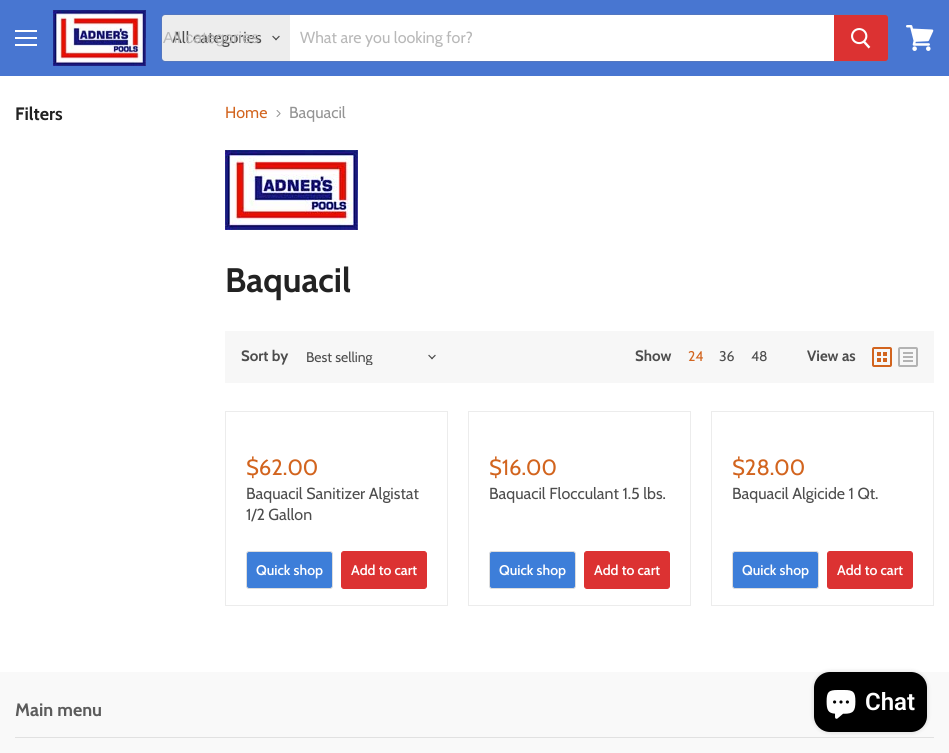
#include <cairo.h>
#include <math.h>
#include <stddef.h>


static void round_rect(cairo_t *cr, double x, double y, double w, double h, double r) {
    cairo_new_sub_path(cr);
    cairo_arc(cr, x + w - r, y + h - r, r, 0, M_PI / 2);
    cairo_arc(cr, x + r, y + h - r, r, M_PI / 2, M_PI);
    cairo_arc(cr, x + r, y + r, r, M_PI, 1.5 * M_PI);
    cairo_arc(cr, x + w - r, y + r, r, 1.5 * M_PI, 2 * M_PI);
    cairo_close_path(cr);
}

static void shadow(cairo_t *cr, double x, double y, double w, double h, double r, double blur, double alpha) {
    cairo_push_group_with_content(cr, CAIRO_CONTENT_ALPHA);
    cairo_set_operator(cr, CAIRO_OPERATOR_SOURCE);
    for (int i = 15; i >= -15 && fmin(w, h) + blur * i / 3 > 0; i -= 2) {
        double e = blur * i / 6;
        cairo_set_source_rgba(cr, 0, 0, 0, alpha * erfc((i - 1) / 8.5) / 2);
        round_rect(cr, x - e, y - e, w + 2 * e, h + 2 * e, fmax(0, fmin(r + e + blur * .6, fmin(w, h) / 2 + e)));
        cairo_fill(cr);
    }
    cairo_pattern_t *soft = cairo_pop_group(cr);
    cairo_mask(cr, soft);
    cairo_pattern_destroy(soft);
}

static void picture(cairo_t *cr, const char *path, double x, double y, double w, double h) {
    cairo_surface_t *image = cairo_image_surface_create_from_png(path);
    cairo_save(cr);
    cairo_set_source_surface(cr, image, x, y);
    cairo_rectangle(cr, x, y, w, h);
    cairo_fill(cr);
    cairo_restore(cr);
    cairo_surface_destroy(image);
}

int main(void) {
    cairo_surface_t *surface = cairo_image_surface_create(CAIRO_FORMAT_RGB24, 949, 753);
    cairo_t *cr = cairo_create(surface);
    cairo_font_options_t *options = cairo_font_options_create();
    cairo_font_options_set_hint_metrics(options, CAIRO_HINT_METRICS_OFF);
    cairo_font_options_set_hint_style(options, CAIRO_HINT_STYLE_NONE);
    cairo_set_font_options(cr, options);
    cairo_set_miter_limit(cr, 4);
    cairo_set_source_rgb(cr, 1, 1, 1);
    cairo_paint(cr);
    cairo_set_source_rgb(cr, 0.282, 0.463, 0.82);
    cairo_rectangle(cr, 0, 0, 949, 76);
    cairo_fill(cr);
    cairo_set_source_rgb(cr, 1, 1, 1);
    cairo_rectangle(cr, 15, 30, 22, 2);
    cairo_fill(cr);
    cairo_rectangle(cr, 15, 37, 22, 2);
    cairo_fill(cr);
    cairo_rectangle(cr, 15, 44, 22, 2);
    cairo_fill(cr);
    picture(cr, "img1.png", 53, 10, 93, 56);
    round_rect(cr, 161.5, 14.5, 727, 47, 3.5);
    cairo_set_source_rgba(cr, 0.502, 0.502, 0.502, 0.2);
    cairo_set_line_width(cr, 1);
    cairo_stroke(cr);
    cairo_set_source_rgb(cr, 0.929, 0.929, 0.929);
    cairo_new_path(cr);
    cairo_move_to(cr, 165, 15);
    cairo_line_to(cr, 290, 15);
    cairo_line_to(cr, 290, 61);
    cairo_line_to(cr, 165, 61);
    cairo_curve_to(cr, 163.5, 61, 162, 59.5, 162, 58);
    cairo_line_to(cr, 162, 18);
    cairo_curve_to(cr, 162, 16.5, 163.5, 15, 165, 15);
    cairo_close_path(cr);
    cairo_fill(cr);
    cairo_select_font_face(cr, "Cabin", CAIRO_FONT_SLANT_NORMAL, CAIRO_FONT_WEIGHT_NORMAL);
    cairo_set_font_size(cr, 16);
    cairo_set_source_rgb(cr, 0.302, 0.302, 0.302);
    cairo_move_to(cr, 172, 43);
    cairo_show_text(cr, "All categories");
    cairo_select_font_face(cr, "Liberation Sans", CAIRO_FONT_SLANT_NORMAL, CAIRO_FONT_WEIGHT_NORMAL);
    cairo_set_source_rgb(cr, 0.722, 0.722, 0.722);
    cairo_move_to(cr, 163, 43);
    cairo_show_text(cr, "All categories");
    picture(cr, "img2.png", 272, 35, 8, 6);
    cairo_set_source_rgb(cr, 1, 1, 1);
    cairo_rectangle(cr, 290, 15, 544, 46);
    cairo_fill(cr);
    cairo_select_font_face(cr, "Cabin", CAIRO_FONT_SLANT_NORMAL, CAIRO_FONT_WEIGHT_NORMAL);
    cairo_set_source_rgb(cr, 0.722, 0.722, 0.722);
    cairo_move_to(cr, 300, 43);
    cairo_show_text(cr, "What are you looking for?");
    cairo_set_source_rgb(cr, 0.863, 0.196, 0.196);
    cairo_new_path(cr);
    cairo_move_to(cr, 834.5, 15.5);
    cairo_line_to(cr, 885, 15.5);
    cairo_curve_to(cr, 886.5, 15.5, 887.5, 16.5, 887.5, 18);
    cairo_line_to(cr, 887.5, 58);
    cairo_curve_to(cr, 887.5, 59.5, 886.5, 60.5, 885, 60.5);
    cairo_line_to(cr, 834.5, 60.5);
    cairo_close_path(cr);
    cairo_fill_preserve(cr);
    cairo_stroke(cr);
    picture(cr, "img3.png", 851, 28, 20, 21);
    picture(cr, "img4.png", 906, 25, 28, 26);
    cairo_select_font_face(cr, "Cabin", CAIRO_FONT_SLANT_NORMAL, CAIRO_FONT_WEIGHT_BOLD);
    cairo_set_font_size(cr, 18);
    cairo_set_source_rgb(cr, 0.133, 0.133, 0.133);
    cairo_move_to(cr, 15, 120);
    cairo_show_text(cr, "Filters");
    cairo_select_font_face(cr, "Cabin", CAIRO_FONT_SLANT_NORMAL, CAIRO_FONT_WEIGHT_NORMAL);
    cairo_set_font_size(cr, 16);
    cairo_set_source_rgb(cr, 0.824, 0.392, 0.118);
    cairo_move_to(cr, 225, 118);
    cairo_show_text(cr, "Home");
    picture(cr, "img5.png", 276, 110, 5, 7);
    cairo_set_source_rgb(cr, 0.58, 0.58, 0.58);
    cairo_move_to(cr, 289, 118);
    cairo_show_text(cr, "Baquacil");
    picture(cr, "img6.png", 225, 150, 133, 80);
    cairo_select_font_face(cr, "Cabin", CAIRO_FONT_SLANT_NORMAL, CAIRO_FONT_WEIGHT_BOLD);
    cairo_set_font_size(cr, 34);
    cairo_set_source_rgb(cr, 0.133, 0.133, 0.133);
    cairo_move_to(cr, 225, 292);
    cairo_show_text(cr, "Baquacil");
    cairo_set_source_rgb(cr, 0.965, 0.965, 0.965);
    cairo_rectangle(cr, 225, 331, 709, 52);
    cairo_fill(cr);
    cairo_set_font_size(cr, 15);
    cairo_set_source_rgb(cr, 0.302, 0.302, 0.302);
    cairo_move_to(cr, 241, 361);
    cairo_show_text(cr, "Sort by");
    cairo_save(cr);
    cairo_rectangle(cr, 306, 349, 112, 16);
    cairo_clip(cr);
    cairo_select_font_face(cr, "Cabin", CAIRO_FONT_SLANT_NORMAL, CAIRO_FONT_WEIGHT_NORMAL);
    cairo_set_font_size(cr, 14);
    cairo_move_to(cr, 306, 362);
    cairo_show_text(cr, "Best selling");
    cairo_restore(cr);
    picture(cr, "img7.png", 428, 354, 8, 6);
    cairo_move_to(cr, 635, 361);
    cairo_show_text(cr, "Show");
    cairo_select_font_face(cr, "Cabin", CAIRO_FONT_SLANT_NORMAL, CAIRO_FONT_WEIGHT_NORMAL);
    cairo_set_font_size(cr, 14);
    cairo_set_source_rgb(cr, 0.824, 0.392, 0.118);
    cairo_move_to(cr, 688, 361);
    cairo_show_text(cr, "24");
    cairo_set_source_rgb(cr, 0.302, 0.302, 0.302);
    cairo_move_to(cr, 719, 361);
    cairo_show_text(cr, "36");
    cairo_move_to(cr, 751, 361);
    cairo_show_text(cr, "48");
    cairo_select_font_face(cr, "Cabin", CAIRO_FONT_SLANT_NORMAL, CAIRO_FONT_WEIGHT_BOLD);
    cairo_set_font_size(cr, 15);
    cairo_move_to(cr, 807, 361);
    cairo_show_text(cr, "View as");
    picture(cr, "img8.png", 872, 347, 20, 20);
    picture(cr, "img9.png", 898, 347, 20, 20);
    cairo_rectangle(cr, 225.5, 411.5, 222, 194);
    cairo_set_source_rgb(cr, 0.922, 0.922, 0.922);
    cairo_stroke(cr);
    cairo_select_font_face(cr, "Cabin", CAIRO_FONT_SLANT_NORMAL, CAIRO_FONT_WEIGHT_NORMAL);
    cairo_set_font_size(cr, 22);
    cairo_set_source_rgb(cr, 0.824, 0.392, 0.118);
    cairo_move_to(cr, 246, 475);
    cairo_show_text(cr, "$62.00");
    cairo_set_font_size(cr, 16);
    cairo_set_source_rgb(cr, 0.302, 0.302, 0.302);
    cairo_move_to(cr, 246, 499);
    cairo_show_text(cr, "Baquacil Sanitizer Algistat");
    cairo_move_to(cr, 246, 520);
    cairo_show_text(cr, "1/2 Gallon");
    cairo_set_source_rgb(cr, 0.239, 0.494, 0.851);
    round_rect(cr, 246.5, 551.5, 86, 37, 2.5);
    cairo_fill_preserve(cr);
    cairo_set_source_rgb(cr, 0.867, 0.867, 0.867);
    cairo_stroke(cr);
    cairo_select_font_face(cr, "Cabin SemiBold", CAIRO_FONT_SLANT_NORMAL, CAIRO_FONT_WEIGHT_NORMAL);
    cairo_set_font_size(cr, 14);
    cairo_set_source_rgb(cr, 1, 1, 1);
    cairo_move_to(cr, 256, 575);
    cairo_show_text(cr, "Quick shop");
    cairo_set_source_rgb(cr, 0.863, 0.196, 0.196);
    round_rect(cr, 341.5, 551.5, 85, 37, 2.5);
    cairo_fill_preserve(cr);
    cairo_stroke(cr);
    cairo_set_source_rgb(cr, 1, 1, 1);
    cairo_move_to(cr, 351, 575);
    cairo_show_text(cr, "Add to cart");
    cairo_rectangle(cr, 468.5, 411.5, 222, 194);
    cairo_set_source_rgb(cr, 0.922, 0.922, 0.922);
    cairo_stroke(cr);
    cairo_select_font_face(cr, "Cabin", CAIRO_FONT_SLANT_NORMAL, CAIRO_FONT_WEIGHT_NORMAL);
    cairo_set_font_size(cr, 22);
    cairo_set_source_rgb(cr, 0.824, 0.392, 0.118);
    cairo_move_to(cr, 489, 475);
    cairo_show_text(cr, "$16.00");
    cairo_set_font_size(cr, 16);
    cairo_set_source_rgb(cr, 0.302, 0.302, 0.302);
    cairo_move_to(cr, 489, 499);
    cairo_show_text(cr, "Baquacil Flocculant 1.5 lbs.");
    cairo_set_source_rgb(cr, 0.239, 0.494, 0.851);
    round_rect(cr, 489.5, 551.5, 86, 37, 2.5);
    cairo_fill_preserve(cr);
    cairo_set_source_rgb(cr, 0.867, 0.867, 0.867);
    cairo_stroke(cr);
    cairo_select_font_face(cr, "Cabin SemiBold", CAIRO_FONT_SLANT_NORMAL, CAIRO_FONT_WEIGHT_NORMAL);
    cairo_set_font_size(cr, 14);
    cairo_set_source_rgb(cr, 1, 1, 1);
    cairo_move_to(cr, 499, 575);
    cairo_show_text(cr, "Quick shop");
    cairo_set_source_rgb(cr, 0.863, 0.196, 0.196);
    round_rect(cr, 584.5, 551.5, 85, 37, 2.5);
    cairo_fill_preserve(cr);
    cairo_stroke(cr);
    cairo_set_source_rgb(cr, 1, 1, 1);
    cairo_move_to(cr, 594, 575);
    cairo_show_text(cr, "Add to cart");
    cairo_rectangle(cr, 711.5, 411.5, 222, 194);
    cairo_set_source_rgb(cr, 0.922, 0.922, 0.922);
    cairo_stroke(cr);
    cairo_select_font_face(cr, "Cabin", CAIRO_FONT_SLANT_NORMAL, CAIRO_FONT_WEIGHT_NORMAL);
    cairo_set_font_size(cr, 22);
    cairo_set_source_rgb(cr, 0.824, 0.392, 0.118);
    cairo_move_to(cr, 732, 475);
    cairo_show_text(cr, "$28.00");
    cairo_set_font_size(cr, 16);
    cairo_set_source_rgb(cr, 0.302, 0.302, 0.302);
    cairo_move_to(cr, 732, 499);
    cairo_show_text(cr, "Baquacil Algicide 1 Qt.");
    cairo_set_source_rgb(cr, 0.239, 0.494, 0.851);
    round_rect(cr, 732.5, 551.5, 86, 37, 2.5);
    cairo_fill_preserve(cr);
    cairo_set_source_rgb(cr, 0.867, 0.867, 0.867);
    cairo_stroke(cr);
    cairo_select_font_face(cr, "Cabin SemiBold", CAIRO_FONT_SLANT_NORMAL, CAIRO_FONT_WEIGHT_NORMAL);
    cairo_set_font_size(cr, 14);
    cairo_set_source_rgb(cr, 1, 1, 1);
    cairo_move_to(cr, 742, 575);
    cairo_show_text(cr, "Quick shop");
    cairo_set_source_rgb(cr, 0.863, 0.196, 0.196);
    round_rect(cr, 827.5, 551.5, 85, 37, 2.5);
    cairo_fill_preserve(cr);
    cairo_stroke(cr);
    cairo_set_source_rgb(cr, 1, 1, 1);
    cairo_move_to(cr, 837, 575);
    cairo_show_text(cr, "Add to cart");
    cairo_set_source_rgb(cr, 0.973, 0.973, 0.973);
    cairo_rectangle(cr, 0, 672, 949, 81);
    cairo_fill(cr);
    cairo_set_source_rgb(cr, 0.882, 0.882, 0.882);
    cairo_rectangle(cr, 15, 737, 919, 1);
    cairo_fill(cr);
    cairo_select_font_face(cr, "Cabin", CAIRO_FONT_SLANT_NORMAL, CAIRO_FONT_WEIGHT_BOLD);
    cairo_set_font_size(cr, 18);
    cairo_set_source_rgb(cr, 0.361, 0.361, 0.361);
    cairo_move_to(cr, 15, 716);
    cairo_show_text(cr, "Main menu");
    cairo_set_source_rgb(cr, 0, 0, 0);
    shadow(cr, 814, 672, 113, 60, 16, 2.5, 0.15);
    cairo_set_source_rgb(cr, 0, 0, 0);
    round_rect(cr, 814, 672, 113, 60, 16);
    cairo_fill(cr);
    picture(cr, "img10.png", 826, 690, 30, 29);
    cairo_select_font_face(cr, "Roboto SemiBold", CAIRO_FONT_SLANT_NORMAL, CAIRO_FONT_WEIGHT_NORMAL);
    cairo_set_font_size(cr, 24);
    cairo_set_source_rgb(cr, 1, 1, 1);
    cairo_move_to(cr, 865, 710);
    cairo_show_text(cr, "Chat");
    cairo_surface_write_to_png(surface, "page.png");
    cairo_font_options_destroy(options);
    cairo_destroy(cr);
    cairo_surface_destroy(surface);
    return 0;
}
